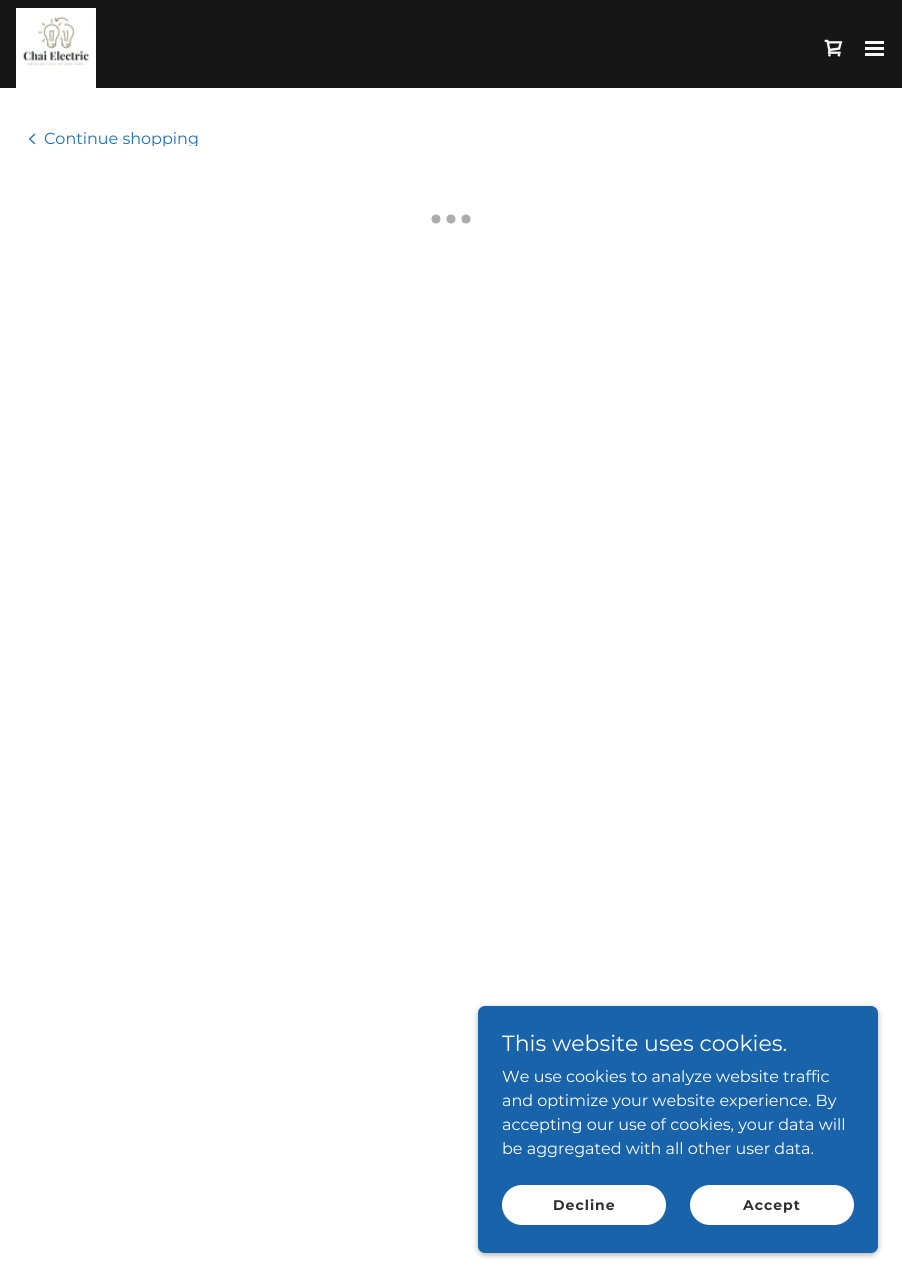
#include <cairo.h>
#include <math.h>
#include <stddef.h>


static void spaced_text(cairo_t *cr, double x, double y, const char *s, double letter, double word) {
    cairo_move_to(cr, x, y);
    while (*s) {
        char ch[5] = {0};
        int n = 0;
        do ch[n++] = *s++; while ((*s & 0xC0) == 0x80);
        cairo_show_text(cr, ch);
        cairo_rel_move_to(cr, letter + word * (*ch == ' '), 0);
    }
}

static void round_rect(cairo_t *cr, double x, double y, double w, double h, double r) {
    cairo_new_sub_path(cr);
    cairo_arc(cr, x + w - r, y + h - r, r, 0, M_PI / 2);
    cairo_arc(cr, x + r, y + h - r, r, M_PI / 2, M_PI);
    cairo_arc(cr, x + r, y + r, r, M_PI, 1.5 * M_PI);
    cairo_arc(cr, x + w - r, y + r, r, 1.5 * M_PI, 2 * M_PI);
    cairo_close_path(cr);
}

static void shadow(cairo_t *cr, double x, double y, double w, double h, double r, double blur, double alpha) {
    cairo_push_group_with_content(cr, CAIRO_CONTENT_ALPHA);
    cairo_set_operator(cr, CAIRO_OPERATOR_SOURCE);
    for (int i = 15; i >= -15 && fmin(w, h) + blur * i / 3 > 0; i -= 2) {
        double e = blur * i / 6;
        cairo_set_source_rgba(cr, 0, 0, 0, alpha * erfc((i - 1) / 8.5) / 2);
        round_rect(cr, x - e, y - e, w + 2 * e, h + 2 * e, fmax(0, fmin(r + e + blur * .6, fmin(w, h) / 2 + e)));
        cairo_fill(cr);
    }
    cairo_pattern_t *soft = cairo_pop_group(cr);
    cairo_mask(cr, soft);
    cairo_pattern_destroy(soft);
}

static void picture(cairo_t *cr, const char *path, double x, double y, double w, double h) {
    cairo_surface_t *image = cairo_image_surface_create_from_png(path);
    cairo_save(cr);
    cairo_set_source_surface(cr, image, x, y);
    cairo_rectangle(cr, x, y, w, h);
    cairo_fill(cr);
    cairo_restore(cr);
    cairo_surface_destroy(image);
}

int main(void) {
    cairo_surface_t *surface = cairo_image_surface_create(CAIRO_FORMAT_RGB24, 902, 1277);
    cairo_t *cr = cairo_create(surface);
    cairo_font_options_t *options = cairo_font_options_create();
    cairo_font_options_set_hint_metrics(options, CAIRO_HINT_METRICS_OFF);
    cairo_font_options_set_hint_style(options, CAIRO_HINT_STYLE_NONE);
    cairo_set_font_options(cr, options);
    cairo_set_miter_limit(cr, 4);
    cairo_set_source_rgb(cr, 1, 1, 1);
    cairo_paint(cr);
    cairo_set_source_rgb(cr, 0.086, 0.086, 0.086);
    cairo_rectangle(cr, 0, 0, 902, 88);
    cairo_fill(cr);
    picture(cr, "img1.png", 16, 8, 80, 80);
    picture(cr, "img2.png", 824, 39, 19, 18);
    cairo_set_source_rgb(cr, 0.969, 0.969, 0.969);
    cairo_rectangle(cr, 865, 41, 19, 3);
    cairo_fill(cr);
    cairo_rectangle(cr, 865, 47, 19, 3);
    cairo_fill(cr);
    cairo_rectangle(cr, 865, 53, 19, 3);
    cairo_fill(cr);
    picture(cr, "img3.png", 28, 133, 8, 12);
    cairo_select_font_face(cr, "Montserrat", CAIRO_FONT_SLANT_NORMAL, CAIRO_FONT_WEIGHT_NORMAL);
    cairo_set_font_size(cr, 16);
    cairo_set_source_rgb(cr, 0.114, 0.435, 0.749);
    cairo_move_to(cr, 44, 144);
    cairo_show_text(cr, "Continue shopping");
    cairo_set_source_rgb(cr, 1, 1, 1);
    cairo_rectangle(cr, 152, 146, 45, 2);
    cairo_fill(cr);
    cairo_set_source_rgb(cr, 0.675, 0.675, 0.675);
    cairo_arc(cr, 436, 219, 4.5, 0, 2 * M_PI);
    cairo_fill(cr);
    cairo_arc(cr, 451, 219, 4.5, 0, 2 * M_PI);
    cairo_fill(cr);
    cairo_arc(cr, 466, 219, 4.5, 0, 2 * M_PI);
    cairo_fill(cr);
    cairo_set_source_rgb(cr, 0, 0, 0);
    shadow(cr, 478, 1008, 400, 247, 7, 3, 0.3);
    cairo_set_source_rgb(cr, 0.098, 0.388, 0.671);
    round_rect(cr, 478, 1006, 400, 247, 7);
    cairo_fill(cr);
    cairo_set_font_size(cr, 22);
    cairo_set_source_rgb(cr, 1, 1, 1);
    cairo_move_to(cr, 502, 1051);
    cairo_show_text(cr, "This website uses cookies.");
    cairo_set_font_size(cr, 16);
    cairo_move_to(cr, 502, 1082);
    cairo_show_text(cr, "We use cookies to analyze website traffic");
    cairo_move_to(cr, 502, 1106);
    cairo_show_text(cr, "and optimize your website experience. By");
    cairo_move_to(cr, 502, 1130);
    cairo_show_text(cr, "accepting our use of cookies, your data will");
    cairo_move_to(cr, 502, 1154);
    cairo_show_text(cr, "be aggregated with all other user data.");
    round_rect(cr, 502, 1185, 164, 40, 20);
    cairo_fill(cr);
    cairo_select_font_face(cr, "Montserrat", CAIRO_FONT_SLANT_NORMAL, CAIRO_FONT_WEIGHT_BOLD);
    cairo_set_font_size(cr, 14);
    cairo_set_source_rgb(cr, 0.188, 0.188, 0.188);
    spaced_text(cr, 553, 1210, "Decline", 1, 0);
    cairo_set_source_rgb(cr, 1, 1, 1);
    round_rect(cr, 690, 1185, 164, 40, 20);
    cairo_fill(cr);
    cairo_set_source_rgb(cr, 0.188, 0.188, 0.188);
    spaced_text(cr, 743, 1210, "Accept", 1, 0);
    cairo_surface_write_to_png(surface, "page.png");
    cairo_font_options_destroy(options);
    cairo_destroy(cr);
    cairo_surface_destroy(surface);
    return 0;
}
